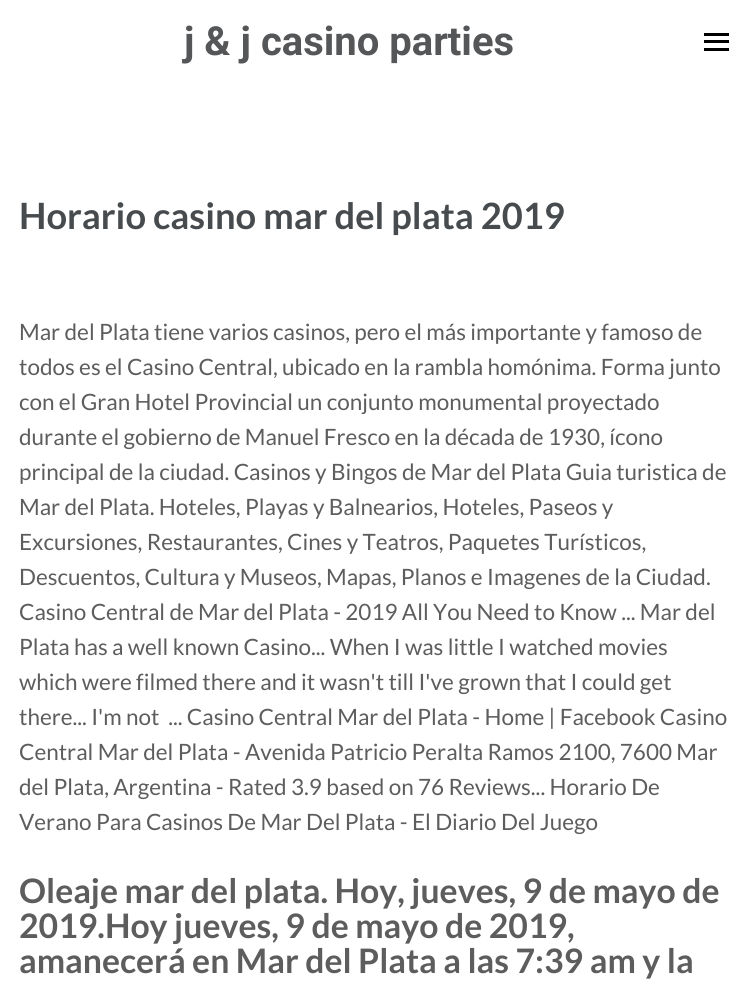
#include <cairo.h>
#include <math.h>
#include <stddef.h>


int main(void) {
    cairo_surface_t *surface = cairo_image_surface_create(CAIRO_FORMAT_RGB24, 747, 983);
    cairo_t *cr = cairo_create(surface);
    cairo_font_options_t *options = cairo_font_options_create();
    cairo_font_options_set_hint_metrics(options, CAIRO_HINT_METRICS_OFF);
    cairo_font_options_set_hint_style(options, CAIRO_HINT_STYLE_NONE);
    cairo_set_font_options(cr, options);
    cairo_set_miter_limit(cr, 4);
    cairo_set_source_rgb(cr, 1, 1, 1);
    cairo_paint(cr);
    cairo_select_font_face(cr, "Roboto", CAIRO_FONT_SLANT_NORMAL, CAIRO_FONT_WEIGHT_BOLD);
    cairo_set_font_size(cr, 40);
    cairo_set_source_rgb(cr, 0.333, 0.337, 0.345);
    cairo_move_to(cr, 184, 55);
    cairo_show_text(cr, "j & j casino parties");
    cairo_set_source_rgb(cr, 0, 0, 0);
    cairo_rectangle(cr, 704, 33, 25, 3);
    cairo_fill(cr);
    cairo_rectangle(cr, 704, 40, 25, 3);
    cairo_fill(cr);
    cairo_rectangle(cr, 704, 48, 25, 3);
    cairo_fill(cr);
    cairo_select_font_face(cr, "Lato", CAIRO_FONT_SLANT_NORMAL, CAIRO_FONT_WEIGHT_BOLD);
    cairo_set_font_size(cr, 36.25);
    cairo_set_source_rgb(cr, 0.278, 0.294, 0.306);
    cairo_move_to(cr, 19, 229);
    cairo_show_text(cr, "Horario casino mar del plata 2019");
    cairo_select_font_face(cr, "Lato", CAIRO_FONT_SLANT_NORMAL, CAIRO_FONT_WEIGHT_NORMAL);
    cairo_set_font_size(cr, 22.5);
    cairo_set_source_rgb(cr, 0.365, 0.365, 0.365);
    cairo_move_to(cr, 19, 340);
    cairo_show_text(cr, "Mar del Plata tiene varios casinos, pero el más importante y famoso de");
    cairo_move_to(cr, 19, 375);
    cairo_show_text(cr, "todos es el Casino Central, ubicado en la rambla homónima. Forma junto");
    cairo_move_to(cr, 19, 410);
    cairo_show_text(cr, "con el Gran Hotel Provincial un conjunto monumental proyectado");
    cairo_move_to(cr, 19, 445);
    cairo_show_text(cr, "durante el gobierno de Manuel Fresco en la década de 1930, ícono");
    cairo_move_to(cr, 19, 480);
    cairo_show_text(cr, "principal de la ciudad. Casinos y Bingos de Mar del Plata Guia turistica de");
    cairo_move_to(cr, 19, 515);
    cairo_show_text(cr, "Mar del Plata. Hoteles, Playas y Balnearios, Hoteles, Paseos y");
    cairo_move_to(cr, 19, 550);
    cairo_show_text(cr, "Excursiones, Restaurantes, Cines y Teatros, Paquetes Turísticos,");
    cairo_move_to(cr, 19, 585);
    cairo_show_text(cr, "Descuentos, Cultura y Museos, Mapas, Planos e Imagenes de la Ciudad.");
    cairo_move_to(cr, 19, 620);
    cairo_show_text(cr, "Casino Central de Mar del Plata - 2019 All You Need to Know ... Mar del");
    cairo_move_to(cr, 19, 655);
    cairo_show_text(cr, "Plata has a well known Casino... When I was little I watched movies");
    cairo_move_to(cr, 19, 690);
    cairo_show_text(cr, "which were filmed there and it wasn't till I've grown that I could get");
    cairo_move_to(cr, 19, 725);
    cairo_show_text(cr, "there... I'm not  ... Casino Central Mar del Plata - Home | Facebook Casino");
    cairo_move_to(cr, 19, 760);
    cairo_show_text(cr, "Central Mar del Plata - Avenida Patricio Peralta Ramos 2100, 7600 Mar");
    cairo_move_to(cr, 19, 795);
    cairo_show_text(cr, "del Plata, Argentina - Rated 3.9 based on 76 Reviews... Horario De");
    cairo_move_to(cr, 19, 830);
    cairo_show_text(cr, "Verano Para Casinos De Mar Del Plata - El Diario Del Juego");
    cairo_select_font_face(cr, "Lato", CAIRO_FONT_SLANT_NORMAL, CAIRO_FONT_WEIGHT_BOLD);
    cairo_set_font_size(cr, 33.75);
    cairo_move_to(cr, 19, 903);
    cairo_show_text(cr, "Oleaje mar del plata. Hoy, jueves, 9 de mayo de");
    cairo_move_to(cr, 19, 938);
    cairo_show_text(cr, "2019.Hoy jueves, 9 de mayo de 2019,");
    cairo_move_to(cr, 19, 973);
    cairo_show_text(cr, "amanecerá en Mar del Plata a las 7:39 am y la");
    cairo_surface_write_to_png(surface, "page.png");
    cairo_font_options_destroy(options);
    cairo_destroy(cr);
    cairo_surface_destroy(surface);
    return 0;
}
